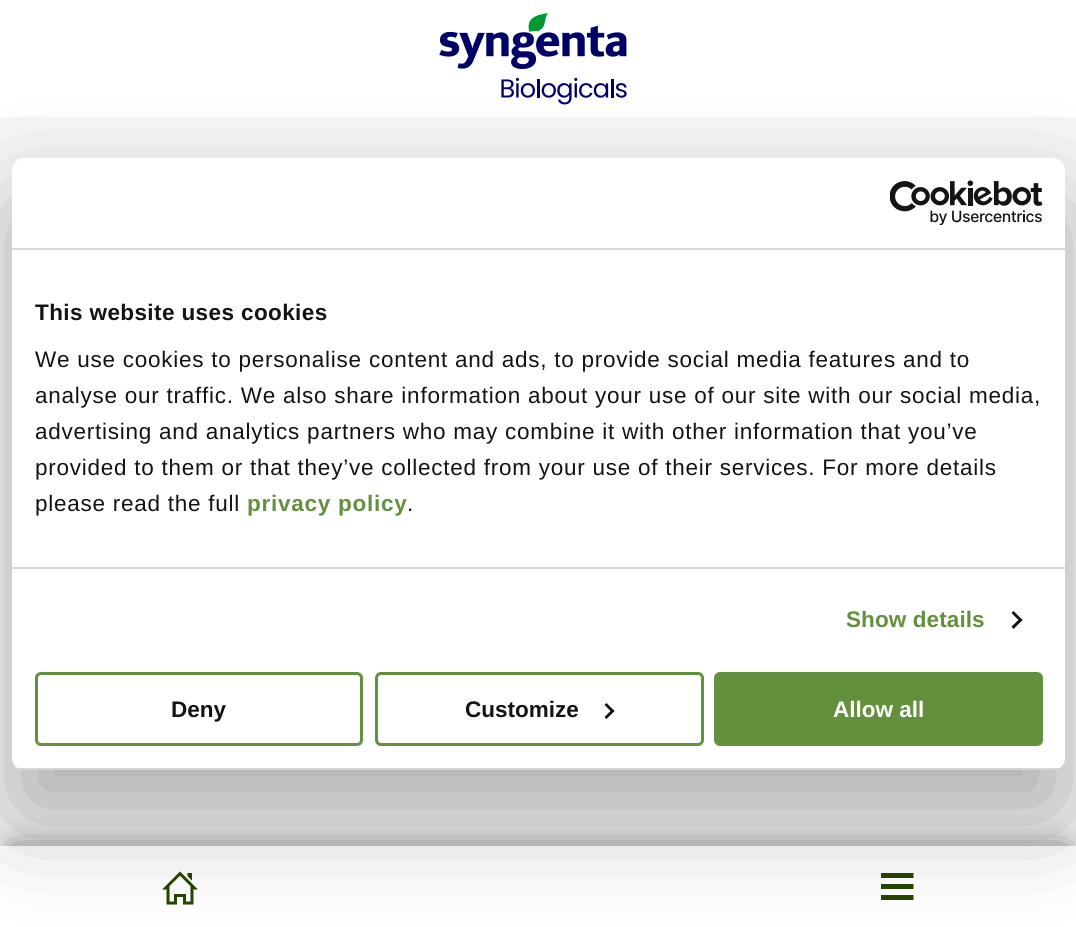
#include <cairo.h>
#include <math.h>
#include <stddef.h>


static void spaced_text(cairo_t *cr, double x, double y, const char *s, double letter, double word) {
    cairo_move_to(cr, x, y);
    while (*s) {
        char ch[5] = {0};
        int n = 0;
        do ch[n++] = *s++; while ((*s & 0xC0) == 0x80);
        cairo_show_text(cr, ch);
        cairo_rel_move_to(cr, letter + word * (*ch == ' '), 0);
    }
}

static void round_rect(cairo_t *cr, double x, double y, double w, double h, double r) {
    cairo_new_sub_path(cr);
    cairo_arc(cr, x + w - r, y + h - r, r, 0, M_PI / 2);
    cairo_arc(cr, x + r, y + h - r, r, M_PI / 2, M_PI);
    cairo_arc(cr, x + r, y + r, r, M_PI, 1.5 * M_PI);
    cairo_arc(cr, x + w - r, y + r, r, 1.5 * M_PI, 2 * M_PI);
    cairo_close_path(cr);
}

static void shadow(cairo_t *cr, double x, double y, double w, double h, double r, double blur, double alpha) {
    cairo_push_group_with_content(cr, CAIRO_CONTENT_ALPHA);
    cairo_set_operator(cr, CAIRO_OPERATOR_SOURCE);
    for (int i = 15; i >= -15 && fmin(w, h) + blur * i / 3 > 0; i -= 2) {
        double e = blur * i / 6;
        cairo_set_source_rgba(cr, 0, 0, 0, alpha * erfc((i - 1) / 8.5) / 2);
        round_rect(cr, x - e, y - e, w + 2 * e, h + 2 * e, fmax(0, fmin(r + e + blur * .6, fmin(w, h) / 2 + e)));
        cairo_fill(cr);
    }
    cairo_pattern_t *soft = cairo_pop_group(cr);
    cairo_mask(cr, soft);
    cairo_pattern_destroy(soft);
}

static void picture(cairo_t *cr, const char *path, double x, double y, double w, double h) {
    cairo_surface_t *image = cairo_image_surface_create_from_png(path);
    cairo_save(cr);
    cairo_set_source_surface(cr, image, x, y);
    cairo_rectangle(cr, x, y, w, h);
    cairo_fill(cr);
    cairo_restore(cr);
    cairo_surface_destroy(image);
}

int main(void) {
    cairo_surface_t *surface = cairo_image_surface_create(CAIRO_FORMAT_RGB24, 1076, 927);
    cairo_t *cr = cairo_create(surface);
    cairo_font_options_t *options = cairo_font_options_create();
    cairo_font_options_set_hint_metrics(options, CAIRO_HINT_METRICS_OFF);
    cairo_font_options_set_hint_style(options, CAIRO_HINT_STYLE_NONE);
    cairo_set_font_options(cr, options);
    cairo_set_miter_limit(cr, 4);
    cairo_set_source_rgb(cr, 0.961, 0.961, 0.961);
    cairo_paint(cr);
    cairo_set_source_rgb(cr, 1, 1, 1);
    cairo_rectangle(cr, 0, 0, 1076, 117);
    cairo_fill(cr);
    picture(cr, "img1.png", 439, 13, 188, 92);
    cairo_set_source_rgb(cr, 0, 0, 0);
    shadow(cr, 14, 854, 1050, 57, 0, 16.5, 0.75);
    cairo_set_source_rgb(cr, 1, 1, 1);
    cairo_rectangle(cr, 0, 846, 1076, 81);
    cairo_fill(cr);
    picture(cr, "img2.png", 162, 871, 36, 34);
    cairo_save(cr);
    cairo_rectangle(cr, 881, 870, 33, 33);
    cairo_clip(cr);
    cairo_set_source_rgb(cr, 0.149, 0.275, 0);
    cairo_new_path(cr);
    cairo_move_to(cr, 913.5, 878);
    cairo_line_to(cr, 880.5, 878);
    cairo_line_to(cr, 880.5, 873);
    cairo_line_to(cr, 913.5, 873);
    cairo_close_path(cr);
    cairo_move_to(cr, 913.5, 884);
    cairo_line_to(cr, 880.5, 884);
    cairo_line_to(cr, 880.5, 889);
    cairo_line_to(cr, 913.5, 889);
    cairo_close_path(cr);
    cairo_move_to(cr, 913.5, 895);
    cairo_line_to(cr, 880.5, 895);
    cairo_line_to(cr, 880.5, 900);
    cairo_line_to(cr, 913.5, 900);
    cairo_close_path(cr);
    cairo_fill(cr);
    cairo_restore(cr);
    cairo_set_source_rgb(cr, 0, 0, 0);
    shadow(cr, 12, 206, 1053, 612, 12, 51, 0.3);
    cairo_set_source_rgb(cr, 1, 1, 1);
    round_rect(cr, 12, 158, 1053, 612, 12);
    cairo_fill(cr);
    cairo_set_source_rgb(cr, 0.839, 0.839, 0.839);
    cairo_rectangle(cr, 12, 248, 1053, 2);
    cairo_fill(cr);
    picture(cr, "img3.png", 890, 180, 153, 45);
    cairo_rectangle(cr, 12, 567, 1053, 2);
    cairo_fill(cr);
    cairo_select_font_face(cr, "Liberation Sans", CAIRO_FONT_SLANT_NORMAL, CAIRO_FONT_WEIGHT_BOLD);
    cairo_set_font_size(cr, 22.5);
    cairo_set_source_rgb(cr, 0.078, 0.078, 0.078);
    spaced_text(cr, 35, 320, "This website uses cookies", 0.4, 0);
    cairo_select_font_face(cr, "Liberation Sans", CAIRO_FONT_SLANT_NORMAL, CAIRO_FONT_WEIGHT_NORMAL);
    spaced_text(cr, 35, 367, "We use cookies to personalise content and ads, to provide social media features and to", 0.75, 0);
    spaced_text(cr, 35, 403, "analyse our traffic. We also share information about your use of our site with our social media,", 0.75, 0);
    spaced_text(cr, 35, 439, "advertising and analytics partners who may combine it with other information that you’ve", 0.75, 0);
    spaced_text(cr, 35, 475, "provided to them or that they’ve collected from your use of their services. For more details", 0.75, 0);
    spaced_text(cr, 35, 511, "please read the full", 0.75, 0);
    cairo_select_font_face(cr, "Liberation Sans", CAIRO_FONT_SLANT_NORMAL, CAIRO_FONT_WEIGHT_BOLD);
    cairo_set_source_rgb(cr, 0.388, 0.565, 0.239);
    spaced_text(cr, 247, 511, "privacy policy", 0.75, 0);
    cairo_select_font_face(cr, "Liberation Sans", CAIRO_FONT_SLANT_NORMAL, CAIRO_FONT_WEIGHT_NORMAL);
    cairo_set_source_rgb(cr, 0.078, 0.078, 0.078);
    spaced_text(cr, 407, 511, ".", 0.75, 0);
    cairo_select_font_face(cr, "Liberation Sans", CAIRO_FONT_SLANT_NORMAL, CAIRO_FONT_WEIGHT_BOLD);
    cairo_set_source_rgb(cr, 0.388, 0.565, 0.239);
    spaced_text(cr, 846, 627, "Show details", 0.1, 0);
    cairo_set_source_rgb(cr, 0.078, 0.078, 0.078);
    cairo_new_path(cr);
    cairo_move_to(cr, 1013.5, 611);
    cairo_line_to(cr, 1022.5, 620);
    cairo_line_to(cr, 1020.5, 622);
    cairo_line_to(cr, 1011.5, 613);
    cairo_close_path(cr);
    cairo_fill(cr);
    cairo_new_path(cr);
    cairo_move_to(cr, 1020.5, 618);
    cairo_line_to(cr, 1022.5, 620);
    cairo_line_to(cr, 1013.5, 629);
    cairo_line_to(cr, 1011.5, 626.5);
    cairo_close_path(cr);
    cairo_fill(cr);
    cairo_save(cr);
    round_rect(cr, 12, 158, 1053, 612, 12);
    cairo_clip(cr);
    cairo_set_source_rgb(cr, 0.839, 0.839, 0.839);
    cairo_rectangle(cr, 12, 768, 1053, 2);
    cairo_fill(cr);
    cairo_restore(cr);
    round_rect(cr, 36.5, 673.5, 325, 71, 4.5);
    cairo_set_source_rgb(cr, 0.388, 0.565, 0.239);
    cairo_set_line_width(cr, 3);
    cairo_stroke(cr);
    cairo_set_source_rgb(cr, 0.078, 0.078, 0.078);
    cairo_move_to(cr, 171, 717);
    cairo_show_text(cr, "Deny");
    round_rect(cr, 376.5, 673.5, 326, 71, 4.5);
    cairo_set_source_rgb(cr, 0.388, 0.565, 0.239);
    cairo_stroke(cr);
    cairo_set_source_rgb(cr, 0.078, 0.078, 0.078);
    cairo_move_to(cr, 465, 717);
    cairo_show_text(cr, "Customize");
    cairo_new_path(cr);
    cairo_move_to(cr, 606.5, 703);
    cairo_line_to(cr, 614.5, 711);
    cairo_line_to(cr, 612.5, 713);
    cairo_line_to(cr, 604.5, 705);
    cairo_close_path(cr);
    cairo_fill(cr);
    cairo_new_path(cr);
    cairo_move_to(cr, 612.5, 709);
    cairo_line_to(cr, 614.5, 711);
    cairo_line_to(cr, 606.5, 719);
    cairo_line_to(cr, 604.5, 717);
    cairo_close_path(cr);
    cairo_fill(cr);
    cairo_set_source_rgb(cr, 0.388, 0.565, 0.239);
    round_rect(cr, 715.5, 673.5, 326, 71, 4.5);
    cairo_fill_preserve(cr);
    cairo_stroke(cr);
    cairo_set_source_rgb(cr, 1, 1, 1);
    cairo_move_to(cr, 833, 717);
    cairo_show_text(cr, "Allow all");
    cairo_surface_write_to_png(surface, "page.png");
    cairo_font_options_destroy(options);
    cairo_destroy(cr);
    cairo_surface_destroy(surface);
    return 0;
}
